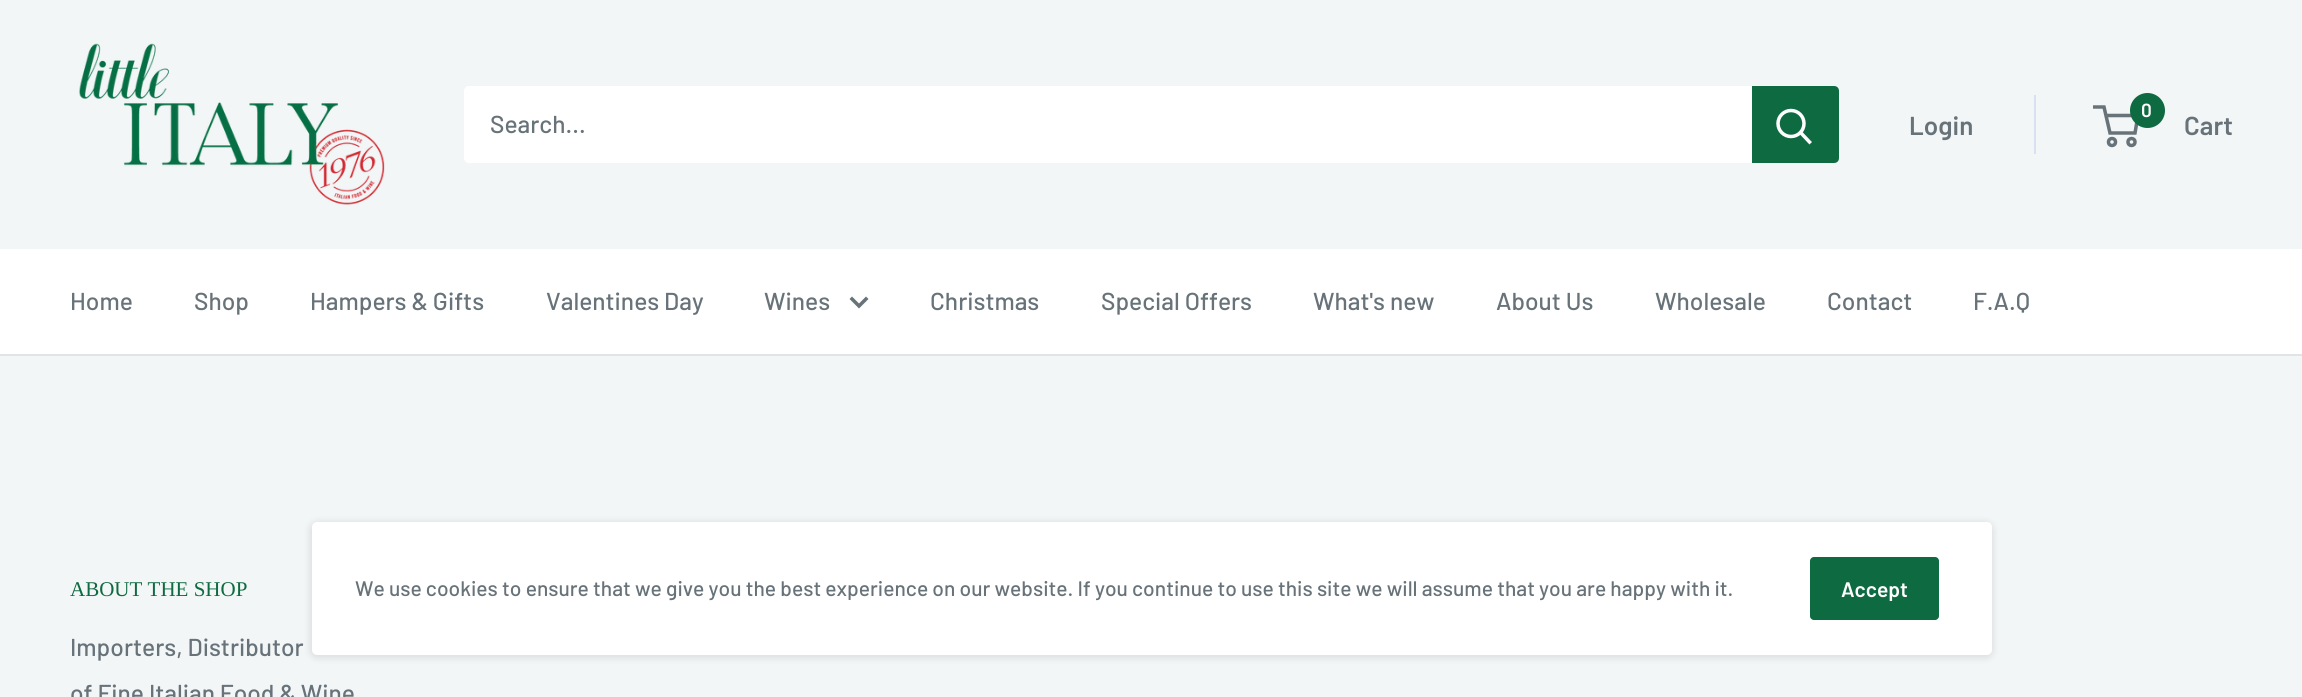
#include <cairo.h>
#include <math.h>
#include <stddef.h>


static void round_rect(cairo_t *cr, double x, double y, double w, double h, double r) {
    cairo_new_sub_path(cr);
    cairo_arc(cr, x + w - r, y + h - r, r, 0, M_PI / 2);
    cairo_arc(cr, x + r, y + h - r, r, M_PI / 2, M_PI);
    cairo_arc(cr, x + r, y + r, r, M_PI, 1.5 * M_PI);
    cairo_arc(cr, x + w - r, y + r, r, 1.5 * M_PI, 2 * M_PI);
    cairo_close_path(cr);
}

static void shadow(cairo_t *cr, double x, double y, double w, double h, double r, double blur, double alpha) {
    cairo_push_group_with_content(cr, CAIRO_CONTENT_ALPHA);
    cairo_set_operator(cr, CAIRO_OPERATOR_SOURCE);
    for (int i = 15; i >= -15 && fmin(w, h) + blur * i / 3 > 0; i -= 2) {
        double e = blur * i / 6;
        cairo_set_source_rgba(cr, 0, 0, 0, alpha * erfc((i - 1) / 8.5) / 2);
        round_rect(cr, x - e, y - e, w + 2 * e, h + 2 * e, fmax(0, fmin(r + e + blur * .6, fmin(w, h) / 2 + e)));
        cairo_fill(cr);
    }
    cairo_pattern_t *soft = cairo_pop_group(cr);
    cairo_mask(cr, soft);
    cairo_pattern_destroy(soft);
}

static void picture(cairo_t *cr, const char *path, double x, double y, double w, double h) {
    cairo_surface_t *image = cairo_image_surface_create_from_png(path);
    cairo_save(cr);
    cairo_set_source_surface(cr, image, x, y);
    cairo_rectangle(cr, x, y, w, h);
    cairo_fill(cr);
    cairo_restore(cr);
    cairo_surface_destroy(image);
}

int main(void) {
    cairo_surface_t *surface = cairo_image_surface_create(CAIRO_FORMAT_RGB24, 2302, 697);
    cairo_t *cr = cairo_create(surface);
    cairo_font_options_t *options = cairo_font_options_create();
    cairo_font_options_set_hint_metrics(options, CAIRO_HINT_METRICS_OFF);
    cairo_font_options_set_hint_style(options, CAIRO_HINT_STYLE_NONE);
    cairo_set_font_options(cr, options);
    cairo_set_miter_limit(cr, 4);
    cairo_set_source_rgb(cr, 0.949, 0.961, 0.965);
    cairo_paint(cr);
    picture(cr, "img1.png", 79, 43, 306, 162);
    cairo_set_source_rgb(cr, 1, 1, 1);
    round_rect(cr, 464, 86, 1375, 77, 5);
    cairo_fill(cr);
    cairo_select_font_face(cr, "Barlow Medium", CAIRO_FONT_SLANT_NORMAL, CAIRO_FONT_WEIGHT_NORMAL);
    cairo_set_font_size(cr, 24.5);
    cairo_set_source_rgb(cr, 0.404, 0.447, 0.475);
    cairo_move_to(cr, 490, 133);
    cairo_show_text(cr, "Search...");
    cairo_set_source_rgb(cr, 0.055, 0.416, 0.251);
    cairo_new_path(cr);
    cairo_move_to(cr, 1752, 86);
    cairo_line_to(cr, 1834, 86);
    cairo_curve_to(cr, 1837, 86, 1839, 88, 1839, 91);
    cairo_line_to(cr, 1839, 158);
    cairo_curve_to(cr, 1839, 161, 1837, 163, 1834, 163);
    cairo_line_to(cr, 1752, 163);
    cairo_close_path(cr);
    cairo_fill(cr);
    cairo_new_path(cr);
    cairo_move_to(cr, 1809.5, 142);
    cairo_line_to(cr, 1801, 133);
    cairo_set_source_rgb(cr, 1, 1, 1);
    cairo_set_line_width(cr, 3.5);
    cairo_set_line_cap(cr, CAIRO_LINE_CAP_SQUARE);
    cairo_stroke(cr);
    cairo_arc(cr, 1791, 123.5, 13, 0, 2 * M_PI);
    cairo_set_line_cap(cr, CAIRO_LINE_CAP_BUTT);
    cairo_stroke(cr);
    cairo_select_font_face(cr, "Barlow SemiBold", CAIRO_FONT_SLANT_NORMAL, CAIRO_FONT_WEIGHT_NORMAL);
    cairo_set_font_size(cr, 26);
    cairo_set_source_rgb(cr, 0.404, 0.447, 0.475);
    cairo_move_to(cr, 1909, 135);
    cairo_show_text(cr, "Login");
    cairo_set_source_rgb(cr, 0.855, 0.878, 0.957);
    cairo_rectangle(cr, 2034, 95, 2, 59);
    cairo_fill(cr);
    cairo_arc(cr, 2112, 142, 3.5, 0, 2 * M_PI);
    cairo_set_source_rgb(cr, 0.404, 0.447, 0.475);
    cairo_stroke(cr);
    cairo_arc(cr, 2131.5, 142, 3.5, 0, 2 * M_PI);
    cairo_stroke(cr);
    cairo_new_path(cr);
    cairo_move_to(cr, 2106, 115.5);
    cairo_line_to(cr, 2138, 115.5);
    cairo_line_to(cr, 2135, 133);
    cairo_line_to(cr, 2110, 133);
    cairo_line_to(cr, 2104, 107);
    cairo_line_to(cr, 2093, 107);
    cairo_stroke(cr);
    cairo_set_source_rgb(cr, 0.055, 0.416, 0.251);
    cairo_arc(cr, 2147.5, 110.5, 17.5, 0, 2 * M_PI);
    cairo_fill(cr);
    cairo_set_font_size(cr, 19);
    cairo_set_source_rgb(cr, 1, 1, 1);
    cairo_move_to(cr, 2141, 117);
    cairo_show_text(cr, "0");
    cairo_set_font_size(cr, 26);
    cairo_set_source_rgb(cr, 0.404, 0.447, 0.475);
    cairo_move_to(cr, 2184, 135);
    cairo_show_text(cr, "Cart");
    cairo_set_source_rgb(cr, 1, 1, 1);
    cairo_rectangle(cr, 0, 249, 2302, 105);
    cairo_fill(cr);
    cairo_set_source_rgb(cr, 0.882, 0.89, 0.894);
    cairo_rectangle(cr, 0, 354, 2302, 2);
    cairo_fill(cr);
    cairo_select_font_face(cr, "Barlow Medium", CAIRO_FONT_SLANT_NORMAL, CAIRO_FONT_WEIGHT_NORMAL);
    cairo_set_font_size(cr, 24.5);
    cairo_set_source_rgb(cr, 0.404, 0.447, 0.475);
    cairo_move_to(cr, 70, 310);
    cairo_show_text(cr, "Home");
    cairo_move_to(cr, 194, 310);
    cairo_show_text(cr, "Shop");
    cairo_move_to(cr, 310, 310);
    cairo_show_text(cr, "Hampers & Gifts");
    cairo_move_to(cr, 546, 310);
    cairo_show_text(cr, "Valentines Day");
    cairo_move_to(cr, 764, 310);
    cairo_show_text(cr, "Wines");
    cairo_new_path(cr);
    cairo_move_to(cr, 866, 299);
    cairo_line_to(cr, 859, 306);
    cairo_line_to(cr, 852, 299);
    cairo_set_line_cap(cr, CAIRO_LINE_CAP_SQUARE);
    cairo_stroke(cr);
    cairo_move_to(cr, 930, 310);
    cairo_show_text(cr, "Christmas");
    cairo_move_to(cr, 1101, 310);
    cairo_show_text(cr, "Special Offers");
    cairo_move_to(cr, 1313, 310);
    cairo_show_text(cr, "What's new");
    cairo_move_to(cr, 1496, 310);
    cairo_show_text(cr, "About Us");
    cairo_move_to(cr, 1655, 310);
    cairo_show_text(cr, "Wholesale");
    cairo_move_to(cr, 1827, 310);
    cairo_show_text(cr, "Contact");
    cairo_move_to(cr, 1973, 310);
    cairo_show_text(cr, "F.A.Q");
    cairo_select_font_face(cr, "Liberation Serif", CAIRO_FONT_SLANT_NORMAL, CAIRO_FONT_WEIGHT_NORMAL);
    cairo_set_font_size(cr, 21);
    cairo_set_source_rgb(cr, 0.055, 0.416, 0.251);
    cairo_move_to(cr, 70, 596);
    cairo_show_text(cr, "ABOUT THE SHOP");
    cairo_select_font_face(cr, "Barlow Medium", CAIRO_FONT_SLANT_NORMAL, CAIRO_FONT_WEIGHT_NORMAL);
    cairo_set_font_size(cr, 24.5);
    cairo_set_source_rgb(cr, 0.404, 0.447, 0.475);
    cairo_move_to(cr, 70, 656);
    cairo_show_text(cr, "Importers, Distributor");
    cairo_move_to(cr, 70, 702);
    cairo_show_text(cr, "of Fine Italian Food & Wine");
    cairo_set_source_rgb(cr, 0, 0, 0);
    shadow(cr, 310, 522, 1683, 136, 7, 3.5, 0.1);
    cairo_set_source_rgb(cr, 1, 1, 1);
    round_rect(cr, 312, 522, 1680, 133, 5);
    cairo_fill(cr);
    cairo_set_font_size(cr, 21);
    cairo_set_source_rgb(cr, 0.404, 0.447, 0.475);
    cairo_move_to(cr, 355, 596);
    cairo_show_text(cr, "We use cookies to ensure that we give you the best experience on our website. If you continue to use this site we will assume that you are happy with it.");
    cairo_set_source_rgb(cr, 0.055, 0.416, 0.251);
    round_rect(cr, 1810, 557, 129, 63, 4);
    cairo_fill(cr);
    cairo_select_font_face(cr, "Barlow SemiBold", CAIRO_FONT_SLANT_NORMAL, CAIRO_FONT_WEIGHT_NORMAL);
    cairo_set_source_rgb(cr, 1, 1, 1);
    cairo_move_to(cr, 1841, 597);
    cairo_show_text(cr, "Accept");
    cairo_surface_write_to_png(surface, "page.png");
    cairo_font_options_destroy(options);
    cairo_destroy(cr);
    cairo_surface_destroy(surface);
    return 0;
}
